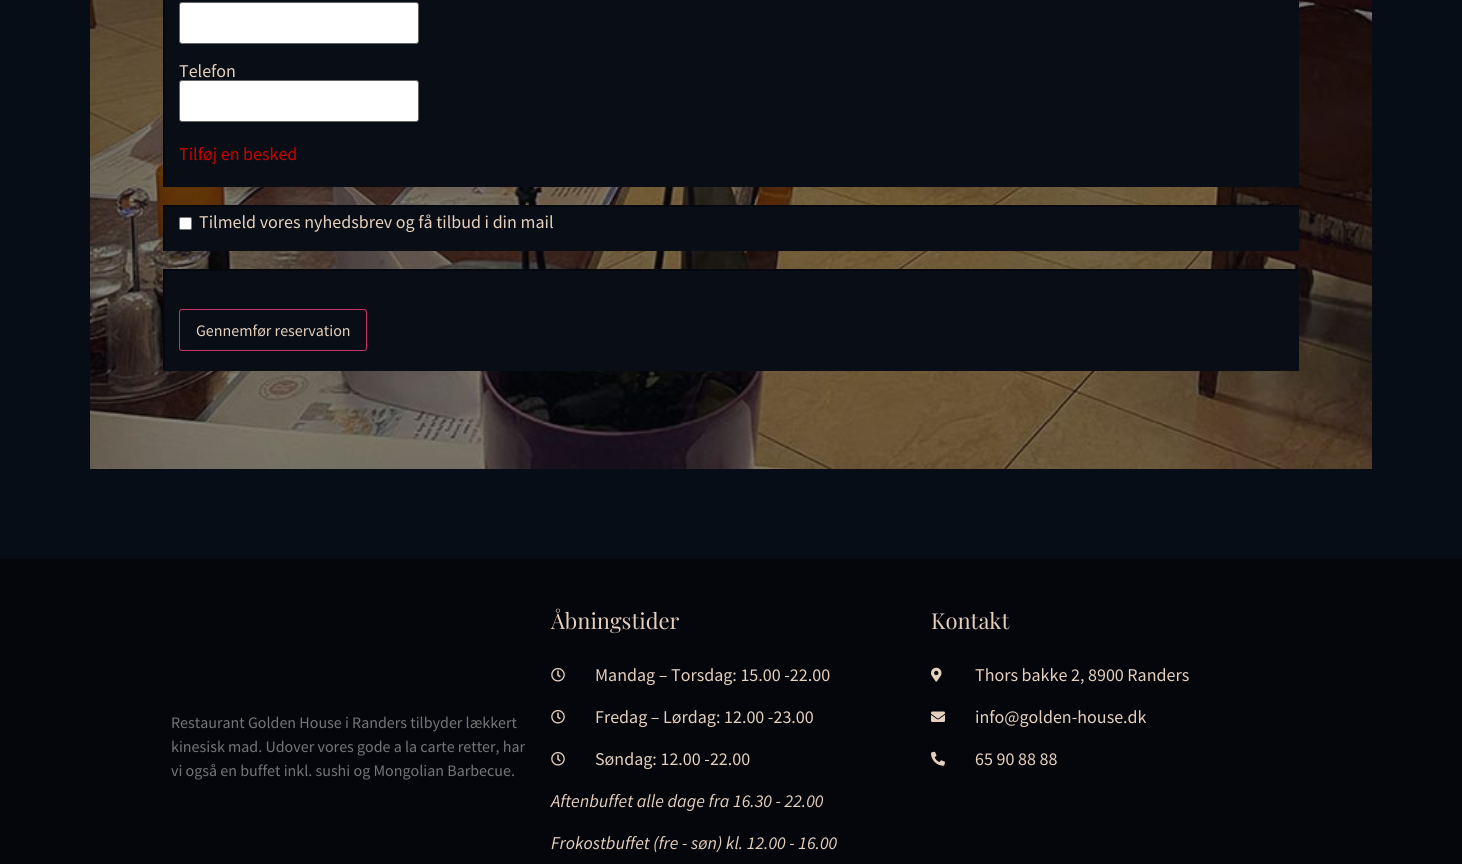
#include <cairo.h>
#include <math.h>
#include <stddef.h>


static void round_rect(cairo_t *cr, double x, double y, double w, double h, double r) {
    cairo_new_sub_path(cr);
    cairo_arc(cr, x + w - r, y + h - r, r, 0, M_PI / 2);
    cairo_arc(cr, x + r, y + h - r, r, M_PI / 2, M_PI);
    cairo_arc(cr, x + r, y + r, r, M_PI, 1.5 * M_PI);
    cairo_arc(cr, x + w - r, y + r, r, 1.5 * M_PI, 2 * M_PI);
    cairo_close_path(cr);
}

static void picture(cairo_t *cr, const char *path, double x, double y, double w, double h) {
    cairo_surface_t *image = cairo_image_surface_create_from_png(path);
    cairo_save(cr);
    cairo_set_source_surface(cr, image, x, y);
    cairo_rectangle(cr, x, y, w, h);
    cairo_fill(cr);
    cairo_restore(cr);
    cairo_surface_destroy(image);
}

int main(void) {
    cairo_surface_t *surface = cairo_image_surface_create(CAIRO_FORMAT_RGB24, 1462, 864);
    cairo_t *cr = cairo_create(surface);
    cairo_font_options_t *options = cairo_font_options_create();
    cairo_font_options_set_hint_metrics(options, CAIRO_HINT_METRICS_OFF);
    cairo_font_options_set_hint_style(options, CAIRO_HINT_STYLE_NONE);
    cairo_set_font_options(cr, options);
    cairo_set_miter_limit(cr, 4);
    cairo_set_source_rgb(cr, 0.016, 0.027, 0.047);
    cairo_paint(cr);
    picture(cr, "img1.png", 90, 0, 1282, 469);
    cairo_set_source_rgb(cr, 0.031, 0.051, 0.086);
    cairo_rectangle(cr, 1372, 0, 90, 469);
    cairo_fill(cr);
    cairo_rectangle(cr, 90, 469, 1372, 90);
    cairo_fill(cr);
    cairo_rectangle(cr, 0, 0, 90, 559);
    cairo_fill(cr);
    cairo_set_source_rgba(cr, 0.016, 0.027, 0.047, 0.5);
    cairo_rectangle(cr, 90, 0, 1282, 469);
    cairo_fill(cr);
    cairo_set_source_rgb(cr, 0.039, 0.055, 0.086);
    cairo_rectangle(cr, 163, 0, 1136, 187);
    cairo_fill(cr);
    cairo_set_source_rgb(cr, 0.027, 0.035, 0.059);
    cairo_new_path(cr);
    cairo_move_to(cr, 163, 187);
    cairo_line_to(cr, 163, -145);
    cairo_line_to(cr, 165, -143);
    cairo_line_to(cr, 165, 185);
    cairo_close_path(cr);
    cairo_fill(cr);
    cairo_set_source_rgb(cr, 1, 1, 1);
    round_rect(cr, 179.5, 2.5, 239, 41, 2.5);
    cairo_fill_preserve(cr);
    cairo_set_source_rgb(cr, 0.4, 0.4, 0.4);
    cairo_set_line_width(cr, 1);
    cairo_stroke(cr);
    cairo_select_font_face(cr, "Source Sans Pro", CAIRO_FONT_SLANT_NORMAL, CAIRO_FONT_WEIGHT_NORMAL);
    cairo_set_font_size(cr, 18);
    cairo_set_source_rgb(cr, 0.898, 0.812, 0.741);
    cairo_move_to(cr, 179, 77);
    cairo_show_text(cr, "Telefon");
    cairo_set_source_rgb(cr, 1, 1, 1);
    round_rect(cr, 179.5, 80.5, 239, 41, 2.5);
    cairo_fill_preserve(cr);
    cairo_set_source_rgb(cr, 0.4, 0.4, 0.4);
    cairo_stroke(cr);
    cairo_set_source_rgb(cr, 0.8, 0, 0);
    cairo_move_to(cr, 179, 160);
    cairo_show_text(cr, "Tilføj en besked");
    cairo_set_source_rgb(cr, 0.039, 0.055, 0.086);
    cairo_rectangle(cr, 163, 205, 1136, 46);
    cairo_fill(cr);
    cairo_set_source_rgb(cr, 0.027, 0.035, 0.059);
    cairo_new_path(cr);
    cairo_move_to(cr, 163, 205);
    cairo_line_to(cr, 1299, 205);
    cairo_line_to(cr, 1297, 207);
    cairo_line_to(cr, 165, 207);
    cairo_close_path(cr);
    cairo_fill(cr);
    cairo_new_path(cr);
    cairo_move_to(cr, 163, 251);
    cairo_line_to(cr, 163, 205);
    cairo_line_to(cr, 165, 207);
    cairo_line_to(cr, 165, 249);
    cairo_close_path(cr);
    cairo_fill(cr);
    cairo_set_source_rgb(cr, 1, 1, 1);
    round_rect(cr, 179.5, 217.5, 12, 12, 1.5);
    cairo_fill_preserve(cr);
    cairo_set_source_rgb(cr, 0.463, 0.463, 0.463);
    cairo_stroke(cr);
    cairo_set_source_rgb(cr, 0.898, 0.812, 0.741);
    cairo_move_to(cr, 199, 228);
    cairo_show_text(cr, "Tilmeld vores nyhedsbrev og få tilbud i din mail");
    cairo_set_source_rgb(cr, 0.039, 0.055, 0.086);
    cairo_rectangle(cr, 163, 269, 1136, 102);
    cairo_fill(cr);
    cairo_set_source_rgb(cr, 0.027, 0.035, 0.059);
    cairo_new_path(cr);
    cairo_move_to(cr, 163, 269);
    cairo_line_to(cr, 1299, 269);
    cairo_line_to(cr, 1297, 271);
    cairo_line_to(cr, 165, 271);
    cairo_close_path(cr);
    cairo_fill(cr);
    cairo_new_path(cr);
    cairo_move_to(cr, 163, 371);
    cairo_line_to(cr, 163, 269);
    cairo_line_to(cr, 165, 271);
    cairo_line_to(cr, 165, 369);
    cairo_close_path(cr);
    cairo_fill(cr);
    round_rect(cr, 179.5, 309.5, 187, 41, 2.5);
    cairo_set_source_rgb(cr, 0.8, 0.2, 0.4);
    cairo_stroke(cr);
    cairo_set_font_size(cr, 16);
    cairo_set_source_rgb(cr, 0.898, 0.812, 0.741);
    cairo_move_to(cr, 196, 336);
    cairo_show_text(cr, "Gennemfør reservation");
    cairo_set_source_rgb(cr, 0.459, 0.459, 0.459);
    cairo_move_to(cr, 171, 728);
    cairo_show_text(cr, "Restaurant Golden House i Randers tilbyder lækkert");
    cairo_move_to(cr, 171, 752);
    cairo_show_text(cr, "kinesisk mad. Udover vores gode a la carte retter, har");
    cairo_move_to(cr, 171, 776);
    cairo_show_text(cr, "vi også en buffet inkl. sushi og Mongolian Barbecue.");
    cairo_select_font_face(cr, "Playfair Display", CAIRO_FONT_SLANT_NORMAL, CAIRO_FONT_WEIGHT_NORMAL);
    cairo_set_font_size(cr, 22);
    cairo_set_source_rgb(cr, 0.898, 0.812, 0.741);
    cairo_move_to(cr, 551, 629);
    cairo_show_text(cr, "Åbningstider");
    picture(cr, "img2.png", 551, 668, 14, 14);
    cairo_select_font_face(cr, "Source Sans Pro", CAIRO_FONT_SLANT_NORMAL, CAIRO_FONT_WEIGHT_NORMAL);
    cairo_set_font_size(cr, 18);
    cairo_move_to(cr, 595, 681);
    cairo_show_text(cr, "Mandag – Torsdag: 15.00 -22.00");
    picture(cr, "img2.png", 551, 710, 14, 14);
    cairo_move_to(cr, 595, 723);
    cairo_show_text(cr, "Fredag – Lørdag: 12.00 -23.00");
    picture(cr, "img2.png", 551, 752, 14, 14);
    cairo_move_to(cr, 595, 765);
    cairo_show_text(cr, "Søndag: 12.00 -22.00");
    cairo_select_font_face(cr, "Source Sans Pro", CAIRO_FONT_SLANT_ITALIC, CAIRO_FONT_WEIGHT_NORMAL);
    cairo_move_to(cr, 551, 807);
    cairo_show_text(cr, "Aftenbuffet alle dage fra 16.30 - 22.00");
    cairo_move_to(cr, 551, 849);
    cairo_show_text(cr, "Frokostbuffet (fre - søn) kl. 12.00 - 16.00");
    cairo_select_font_face(cr, "Playfair Display", CAIRO_FONT_SLANT_NORMAL, CAIRO_FONT_WEIGHT_NORMAL);
    cairo_set_font_size(cr, 22);
    cairo_move_to(cr, 931, 629);
    cairo_show_text(cr, "Kontakt");
    picture(cr, "img3.png", 931, 667, 11, 15);
    cairo_select_font_face(cr, "Source Sans Pro", CAIRO_FONT_SLANT_NORMAL, CAIRO_FONT_WEIGHT_NORMAL);
    cairo_set_font_size(cr, 18);
    cairo_move_to(cr, 975, 681);
    cairo_show_text(cr, "Thors bakke 2, 8900 Randers");
    picture(cr, "img4.png", 931, 711, 14, 11);
    cairo_move_to(cr, 975, 723);
    cairo_show_text(cr, "info@golden-house.dk");
    picture(cr, "img5.png", 931, 751, 14, 15);
    cairo_move_to(cr, 975, 765);
    cairo_show_text(cr, "65 90 88 88");
    cairo_surface_write_to_png(surface, "page.png");
    cairo_font_options_destroy(options);
    cairo_destroy(cr);
    cairo_surface_destroy(surface);
    return 0;
}
